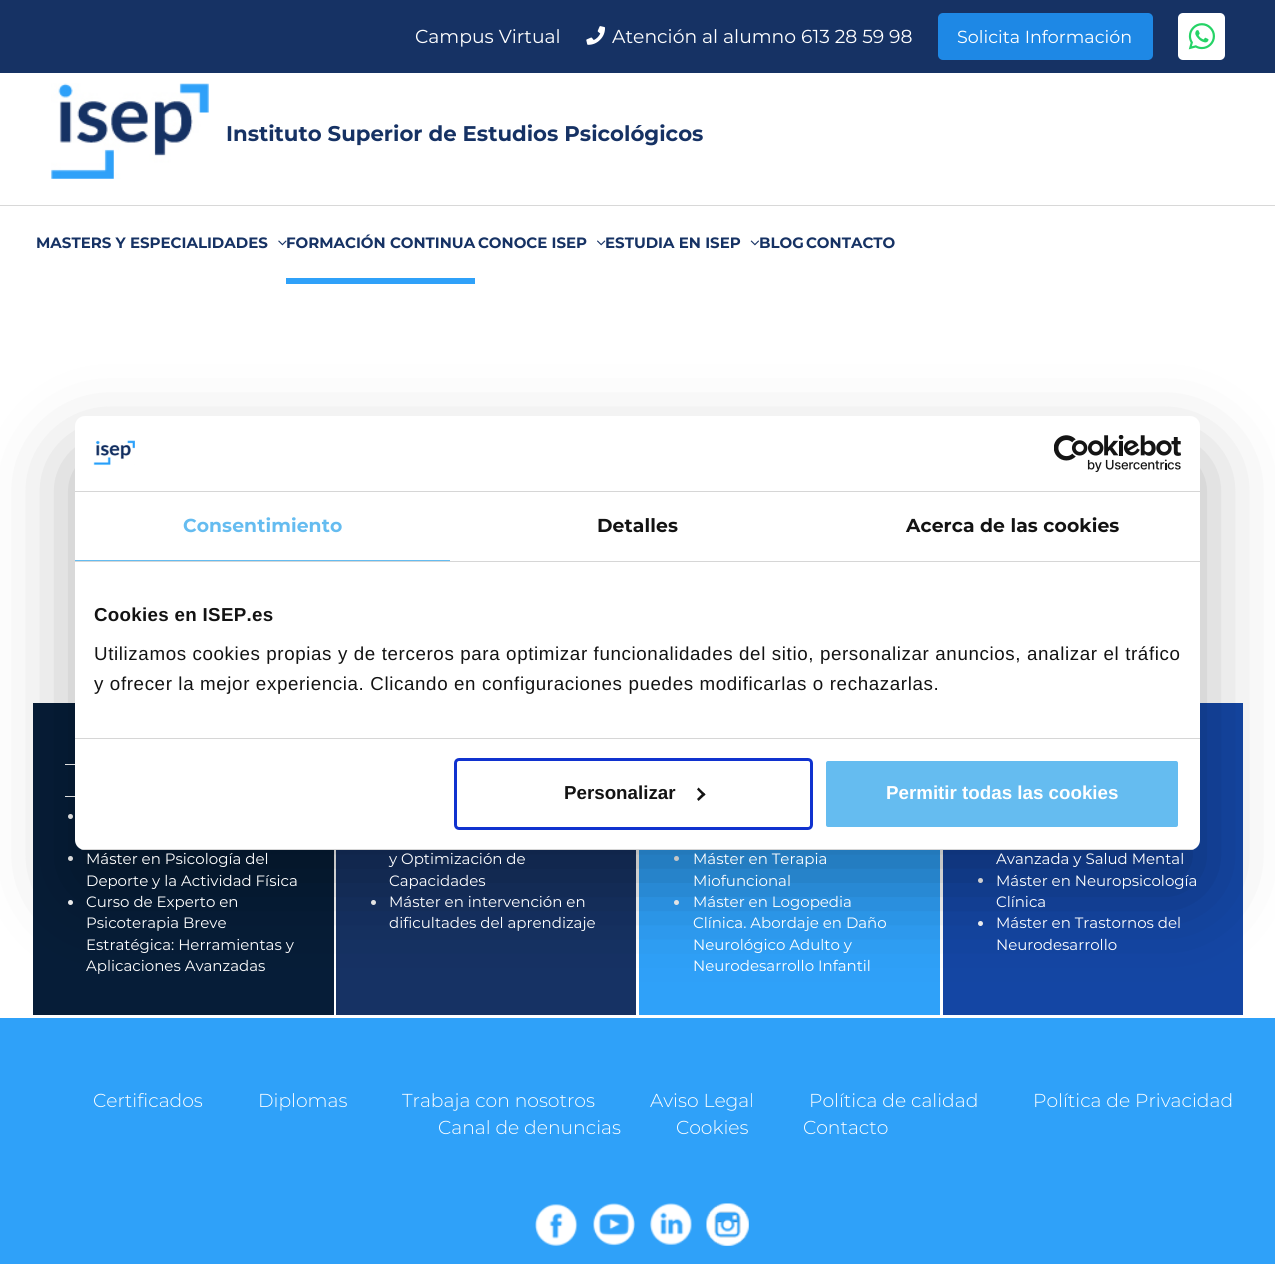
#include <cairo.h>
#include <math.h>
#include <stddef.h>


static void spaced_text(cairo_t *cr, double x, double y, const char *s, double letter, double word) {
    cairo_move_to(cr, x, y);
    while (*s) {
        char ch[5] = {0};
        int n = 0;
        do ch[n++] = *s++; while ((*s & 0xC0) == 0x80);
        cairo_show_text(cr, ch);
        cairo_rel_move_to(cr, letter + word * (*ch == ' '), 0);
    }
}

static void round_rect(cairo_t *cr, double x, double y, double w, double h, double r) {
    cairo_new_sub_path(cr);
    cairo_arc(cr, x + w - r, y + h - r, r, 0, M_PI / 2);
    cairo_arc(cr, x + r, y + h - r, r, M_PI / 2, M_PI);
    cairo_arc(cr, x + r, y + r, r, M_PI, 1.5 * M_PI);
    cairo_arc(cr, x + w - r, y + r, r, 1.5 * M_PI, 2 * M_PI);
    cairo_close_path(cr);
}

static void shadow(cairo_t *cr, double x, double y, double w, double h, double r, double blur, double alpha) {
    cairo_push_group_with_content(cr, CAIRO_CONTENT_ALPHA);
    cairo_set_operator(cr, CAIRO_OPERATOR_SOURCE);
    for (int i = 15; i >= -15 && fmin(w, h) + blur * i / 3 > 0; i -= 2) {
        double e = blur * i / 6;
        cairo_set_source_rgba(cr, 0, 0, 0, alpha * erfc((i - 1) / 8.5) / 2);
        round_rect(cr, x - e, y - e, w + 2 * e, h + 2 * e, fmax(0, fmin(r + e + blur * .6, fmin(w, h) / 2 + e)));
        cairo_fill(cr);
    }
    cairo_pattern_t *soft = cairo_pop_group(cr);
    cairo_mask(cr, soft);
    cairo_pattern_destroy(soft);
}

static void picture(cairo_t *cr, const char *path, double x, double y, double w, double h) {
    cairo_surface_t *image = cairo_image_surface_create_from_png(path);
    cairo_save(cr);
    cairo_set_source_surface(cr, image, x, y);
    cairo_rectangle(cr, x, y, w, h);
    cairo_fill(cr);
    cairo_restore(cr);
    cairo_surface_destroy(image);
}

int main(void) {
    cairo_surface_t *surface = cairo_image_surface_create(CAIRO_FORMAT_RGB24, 1275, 1264);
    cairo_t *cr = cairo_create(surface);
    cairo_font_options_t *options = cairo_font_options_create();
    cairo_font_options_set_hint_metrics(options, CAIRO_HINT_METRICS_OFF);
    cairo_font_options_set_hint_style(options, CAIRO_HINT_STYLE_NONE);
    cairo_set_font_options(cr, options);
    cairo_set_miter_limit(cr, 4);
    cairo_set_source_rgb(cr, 1, 1, 1);
    cairo_paint(cr);
    cairo_rectangle(cr, -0.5, 38.5, 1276, 167);
    cairo_set_source_rgb(cr, 0.847, 0.847, 0.847);
    cairo_set_line_width(cr, 1);
    cairo_stroke(cr);
    cairo_set_source_rgb(cr, 0.086, 0.196, 0.392);
    cairo_rectangle(cr, 0, 0, 1275, 73);
    cairo_fill(cr);
    cairo_select_font_face(cr, "Montserrat", CAIRO_FONT_SLANT_NORMAL, CAIRO_FONT_WEIGHT_NORMAL);
    cairo_set_font_size(cr, 18.75);
    cairo_set_source_rgb(cr, 1, 1, 1);
    cairo_move_to(cr, 415, 43);
    cairo_show_text(cr, "Campus Virtual");
    picture(cr, "img1.png", 586, 26, 19, 19);
    cairo_move_to(cr, 612, 43);
    cairo_show_text(cr, "Atención al alumno 613 28 59 98");
    cairo_set_source_rgb(cr, 0.118, 0.533, 0.898);
    round_rect(cr, 938, 13, 215, 47, 5);
    cairo_fill(cr);
    cairo_set_font_size(cr, 17.5);
    cairo_set_source_rgb(cr, 1, 1, 1);
    cairo_move_to(cr, 957, 43);
    cairo_show_text(cr, "Solicita Información");
    round_rect(cr, 1178, 13, 47, 47, 5);
    cairo_fill(cr);
    picture(cr, "img2.png", 1188, 23, 27, 27);
    picture(cr, "img3.png", 51, 83, 158, 96);
    cairo_select_font_face(cr, "Montserrat", CAIRO_FONT_SLANT_NORMAL, CAIRO_FONT_WEIGHT_BOLD);
    cairo_set_font_size(cr, 21.25);
    cairo_set_source_rgb(cr, 0.086, 0.196, 0.392);
    cairo_move_to(cr, 226, 141);
    cairo_show_text(cr, "Instituto Superior de Estudios Psicológicos");
    cairo_set_font_size(cr, 15);
    cairo_move_to(cr, 36, 248);
    cairo_show_text(cr, "MASTERS Y ESPECIALIDADES");
    picture(cr, "img4.png", 278, 240, 9, 6);
    cairo_set_source_rgb(cr, 0.184, 0.631, 0.976);
    cairo_rectangle(cr, 286, 278, 189, 6);
    cairo_fill(cr);
    cairo_set_source_rgb(cr, 0.086, 0.196, 0.392);
    cairo_move_to(cr, 286, 248);
    cairo_show_text(cr, "FORMACIÓN CONTINUA");
    cairo_move_to(cr, 478, 248);
    cairo_show_text(cr, "CONOCE ISEP");
    picture(cr, "img5.png", 597, 240, 9, 6);
    cairo_move_to(cr, 605, 248);
    cairo_show_text(cr, "ESTUDIA EN ISEP");
    picture(cr, "img6.png", 750, 240, 9, 6);
    cairo_move_to(cr, 759, 248);
    cairo_show_text(cr, "BLOG");
    cairo_move_to(cr, 806, 248);
    cairo_show_text(cr, "CONTACTO");
    cairo_set_source_rgb(cr, 0.024, 0.114, 0.22);
    cairo_rectangle(cr, 33, 703, 301, 312);
    cairo_fill(cr);
    cairo_set_source_rgb(cr, 1, 1, 1);
    cairo_rectangle(cr, 65, 764, 10, 1);
    cairo_fill(cr);
    cairo_rectangle(cr, 65, 796, 10, 1);
    cairo_fill(cr);
    cairo_arc(cr, 70.5, 816.5, 2.5, 0, 2 * M_PI);
    cairo_fill(cr);
    cairo_arc(cr, 70.5, 858.5, 2.5, 0, 2 * M_PI);
    cairo_fill(cr);
    cairo_arc(cr, 70.5, 902.5, 2.5, 0, 2 * M_PI);
    cairo_fill(cr);
    cairo_set_source_rgb(cr, 0.086, 0.196, 0.392);
    cairo_rectangle(cr, 336, 850, 300, 165);
    cairo_fill(cr);
    cairo_set_source_rgb(cr, 1, 1, 1);
    cairo_arc(cr, 373.5, 902.5, 2.5, 0, 2 * M_PI);
    cairo_fill(cr);
    cairo_set_source_rgb(cr, 0.184, 0.631, 0.976);
    cairo_rectangle(cr, 639, 850, 301, 165);
    cairo_fill(cr);
    cairo_set_source_rgb(cr, 1, 1, 1);
    cairo_arc(cr, 676.5, 858.5, 2.5, 0, 2 * M_PI);
    cairo_fill(cr);
    cairo_arc(cr, 676.5, 902.5, 2.5, 0, 2 * M_PI);
    cairo_fill(cr);
    cairo_set_source_rgb(cr, 0.082, 0.275, 0.643);
    cairo_rectangle(cr, 943, 703, 300, 312);
    cairo_fill(cr);
    cairo_set_source_rgb(cr, 1, 1, 1);
    cairo_arc(cr, 980.5, 880.5, 2.5, 0, 2 * M_PI);
    cairo_fill(cr);
    cairo_arc(cr, 980.5, 923.5, 2.5, 0, 2 * M_PI);
    cairo_fill(cr);
    cairo_set_source_rgb(cr, 0.184, 0.631, 0.976);
    cairo_rectangle(cr, 0, 1018, 1275, 246);
    cairo_fill(cr);
    cairo_set_source_rgb(cr, 0, 0, 0);
    shadow(cr, 75, 456, 1125, 434, 10, 42.5, 0.3);
    cairo_set_source_rgb(cr, 1, 1, 1);
    round_rect(cr, 75, 416, 1125, 434, 10);
    cairo_fill(cr);
    cairo_set_source_rgb(cr, 0.839, 0.839, 0.839);
    cairo_rectangle(cr, 75, 491, 1125, 1);
    cairo_fill(cr);
    picture(cr, "img7.png", 93, 440, 42, 26);
    picture(cr, "img8.png", 1054, 435, 127, 38);
    cairo_rectangle(cr, 75, 561, 1125, 1);
    cairo_fill(cr);
    cairo_set_source_rgb(cr, 0.396, 0.737, 0.941);
    cairo_rectangle(cr, 75, 560, 375, 1);
    cairo_fill(cr);
    cairo_set_font_size(cr, 18.75);
    spaced_text(cr, 183, 532, "Consentimiento", 0.1, 0);
    cairo_set_source_rgb(cr, 0.078, 0.078, 0.078);
    spaced_text(cr, 597, 532, "Detalles", 0.1, 0);
    spaced_text(cr, 906, 532, "Acerca de las cookies", 0.1, 0);
    cairo_set_source_rgb(cr, 0.839, 0.839, 0.839);
    cairo_rectangle(cr, 75, 738, 1125, 1);
    cairo_fill(cr);
    cairo_select_font_face(cr, "Liberation Sans", CAIRO_FONT_SLANT_NORMAL, CAIRO_FONT_WEIGHT_BOLD);
    cairo_set_source_rgb(cr, 0.078, 0.078, 0.078);
    spaced_text(cr, 94, 621, "Cookies en ISEP.es", 0.3, 0);
    cairo_select_font_face(cr, "Liberation Sans", CAIRO_FONT_SLANT_NORMAL, CAIRO_FONT_WEIGHT_NORMAL);
    spaced_text(cr, 94, 660, "Utilizamos cookies propias y de terceros para optimizar funcionalidades del sitio, personalizar anuncios, analizar el tráfico", 0.62, 0);
    spaced_text(cr, 94, 690, "y ofrecer la mejor experiencia. Clicando en configuraciones puedes modificarlas o rechazarlas.", 0.62, 0);
    cairo_save(cr);
    round_rect(cr, 75, 416, 1125, 434, 10);
    cairo_clip(cr);
    cairo_set_source_rgb(cr, 0.839, 0.839, 0.839);
    cairo_rectangle(cr, 75, 849, 1125, 1);
    cairo_fill(cr);
    cairo_restore(cr);
    round_rect(cr, 455.5, 759.5, 356, 69, 3.5);
    cairo_set_source_rgb(cr, 0.063, 0.196, 0.812);
    cairo_set_line_width(cr, 3);
    cairo_stroke(cr);
    cairo_select_font_face(cr, "Liberation Sans", CAIRO_FONT_SLANT_NORMAL, CAIRO_FONT_WEIGHT_BOLD);
    cairo_set_source_rgb(cr, 0.078, 0.078, 0.078);
    cairo_move_to(cr, 564, 799);
    cairo_show_text(cr, "Personalizar");
    cairo_new_path(cr);
    cairo_move_to(cr, 698.5, 787.5);
    cairo_line_to(cr, 705.5, 794.5);
    cairo_line_to(cr, 703.5, 796);
    cairo_line_to(cr, 697, 789.5);
    cairo_close_path(cr);
    cairo_fill(cr);
    cairo_new_path(cr);
    cairo_move_to(cr, 703.5, 792.5);
    cairo_line_to(cr, 705.5, 794.5);
    cairo_line_to(cr, 698.5, 801);
    cairo_line_to(cr, 697, 799);
    cairo_close_path(cr);
    cairo_fill(cr);
    cairo_set_source_rgb(cr, 0.396, 0.737, 0.941);
    round_rect(cr, 824.5, 759.5, 355, 69, 3.5);
    cairo_fill_preserve(cr);
    cairo_set_source_rgb(cr, 1, 1, 1);
    cairo_stroke(cr);
    cairo_move_to(cr, 886, 799);
    cairo_show_text(cr, "Permitir todas las cookies");
    cairo_select_font_face(cr, "Montserrat", CAIRO_FONT_SLANT_NORMAL, CAIRO_FONT_WEIGHT_NORMAL);
    cairo_set_font_size(cr, 15);
    cairo_move_to(cr, 86, 864);
    cairo_show_text(cr, "Máster en Psicología del");
    cairo_move_to(cr, 86, 886);
    cairo_show_text(cr, "Deporte y la Actividad Física");
    cairo_move_to(cr, 86, 907);
    cairo_show_text(cr, "Curso de Experto en");
    cairo_move_to(cr, 86, 928);
    cairo_show_text(cr, "Psicoterapia Breve");
    cairo_move_to(cr, 86, 950);
    cairo_show_text(cr, "Estratégica: Herramientas y");
    cairo_move_to(cr, 86, 971);
    cairo_show_text(cr, "Aplicaciones Avanzadas");
    cairo_move_to(cr, 389, 864);
    cairo_show_text(cr, "y Optimización de");
    cairo_move_to(cr, 389, 886);
    cairo_show_text(cr, "Capacidades");
    cairo_move_to(cr, 389, 907);
    cairo_show_text(cr, "Máster en intervención en");
    cairo_move_to(cr, 389, 928);
    cairo_show_text(cr, "dificultades del aprendizaje");
    cairo_move_to(cr, 693, 864);
    cairo_show_text(cr, "Máster en Terapia");
    cairo_move_to(cr, 693, 886);
    cairo_show_text(cr, "Miofuncional");
    cairo_move_to(cr, 693, 907);
    cairo_show_text(cr, "Máster en Logopedia");
    cairo_move_to(cr, 693, 928);
    cairo_show_text(cr, "Clínica. Abordaje en Daño");
    cairo_move_to(cr, 693, 950);
    cairo_show_text(cr, "Neurológico Adulto y");
    cairo_move_to(cr, 693, 971);
    cairo_show_text(cr, "Neurodesarrollo Infantil");
    cairo_move_to(cr, 996, 864);
    cairo_show_text(cr, "Avanzada y Salud Mental");
    cairo_move_to(cr, 996, 886);
    cairo_show_text(cr, "Máster en Neuropsicología");
    cairo_move_to(cr, 996, 907);
    cairo_show_text(cr, "Clínica");
    cairo_move_to(cr, 996, 928);
    cairo_show_text(cr, "Máster en Trastornos del");
    cairo_move_to(cr, 996, 950);
    cairo_show_text(cr, "Neurodesarrollo");
    cairo_select_font_face(cr, "Montserrat Light", CAIRO_FONT_SLANT_NORMAL, CAIRO_FONT_WEIGHT_NORMAL);
    cairo_set_font_size(cr, 18.75);
    cairo_move_to(cr, 93, 1107);
    cairo_show_text(cr, "Certificados");
    cairo_move_to(cr, 258, 1107);
    cairo_show_text(cr, "Diplomas");
    cairo_move_to(cr, 402, 1107);
    cairo_show_text(cr, "Trabaja con nosotros");
    cairo_move_to(cr, 650, 1107);
    cairo_show_text(cr, "Aviso Legal");
    cairo_move_to(cr, 809, 1107);
    cairo_show_text(cr, "Política de calidad");
    cairo_move_to(cr, 1033, 1107);
    cairo_show_text(cr, "Política de Privacidad");
    cairo_move_to(cr, 438, 1134);
    cairo_show_text(cr, "Canal de denuncias");
    cairo_move_to(cr, 676, 1134);
    cairo_show_text(cr, "Cookies");
    cairo_move_to(cr, 803, 1134);
    cairo_show_text(cr, "Contacto");
    picture(cr, "img9.png", 535, 1204, 43, 42);
    picture(cr, "img10.png", 593, 1203, 42, 43);
    picture(cr, "img11.png", 650, 1203, 42, 42);
    picture(cr, "img12.png", 706, 1203, 43, 43);
    cairo_surface_write_to_png(surface, "page.png");
    cairo_font_options_destroy(options);
    cairo_destroy(cr);
    cairo_surface_destroy(surface);
    return 0;
}
